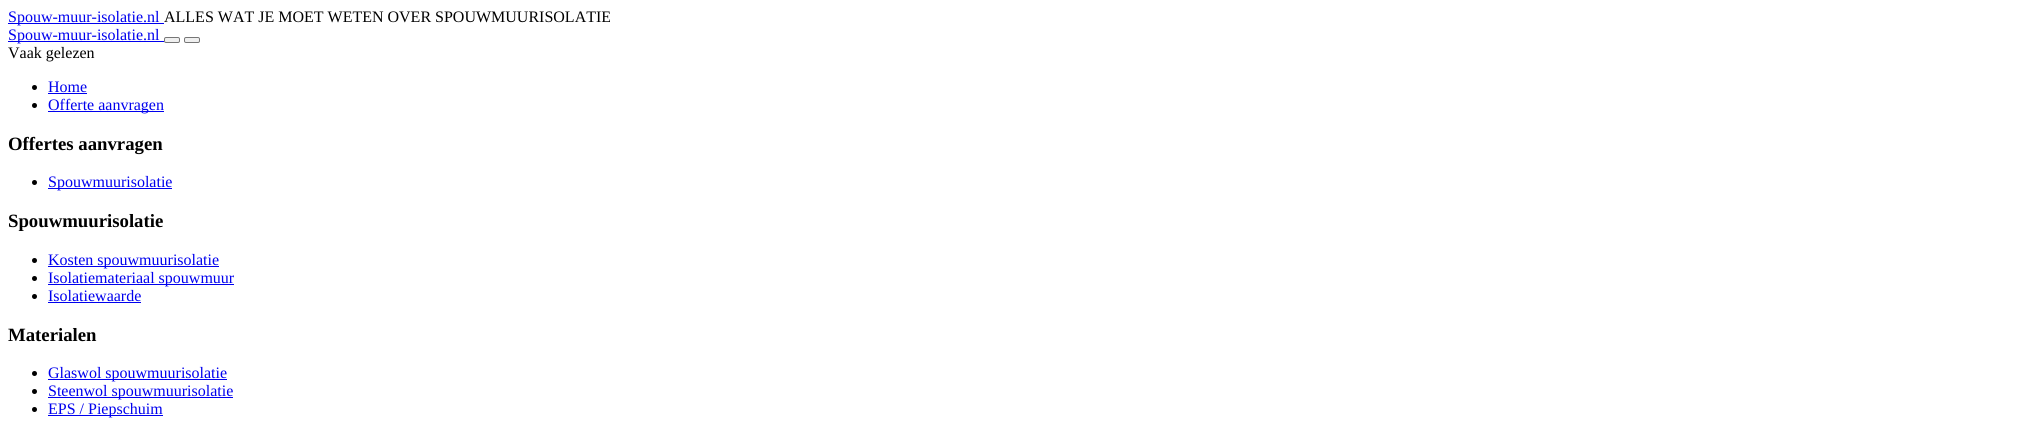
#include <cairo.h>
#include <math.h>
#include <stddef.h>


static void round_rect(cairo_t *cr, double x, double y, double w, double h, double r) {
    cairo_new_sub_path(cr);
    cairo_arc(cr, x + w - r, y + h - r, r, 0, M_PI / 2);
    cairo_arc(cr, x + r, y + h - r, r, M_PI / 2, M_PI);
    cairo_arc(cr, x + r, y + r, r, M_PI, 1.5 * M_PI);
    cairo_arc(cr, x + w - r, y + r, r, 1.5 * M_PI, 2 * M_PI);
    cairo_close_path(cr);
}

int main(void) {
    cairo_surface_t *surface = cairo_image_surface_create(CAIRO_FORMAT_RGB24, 2044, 447);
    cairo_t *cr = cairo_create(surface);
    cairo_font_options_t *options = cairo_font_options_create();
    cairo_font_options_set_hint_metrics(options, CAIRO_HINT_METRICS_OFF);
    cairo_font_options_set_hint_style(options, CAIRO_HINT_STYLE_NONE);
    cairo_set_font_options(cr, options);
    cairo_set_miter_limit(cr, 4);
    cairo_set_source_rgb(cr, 1, 1, 1);
    cairo_paint(cr);
    cairo_set_source_rgb(cr, 0, 0, 0.933);
    cairo_rectangle(cr, 8, 23, 156, 1);
    cairo_fill(cr);
    cairo_select_font_face(cr, "Liberation Serif", CAIRO_FONT_SLANT_NORMAL, CAIRO_FONT_WEIGHT_NORMAL);
    cairo_set_font_size(cr, 16);
    cairo_move_to(cr, 8, 22);
    cairo_show_text(cr, "Spouw-muur-isolatie.nl");
    cairo_set_source_rgb(cr, 0, 0, 0);
    cairo_move_to(cr, 164, 22);
    cairo_show_text(cr, "ALLES WAT JE MOET WETEN OVER SPOUWMUURISOLATIE");
    cairo_set_source_rgb(cr, 0, 0, 0.933);
    cairo_rectangle(cr, 8, 41, 156, 1);
    cairo_fill(cr);
    cairo_move_to(cr, 8, 40);
    cairo_show_text(cr, "Spouw-muur-isolatie.nl");
    cairo_set_source_rgb(cr, 0.937, 0.937, 0.937);
    round_rect(cr, 164.5, 37.5, 15, 5, 1.5);
    cairo_fill_preserve(cr);
    cairo_set_source_rgb(cr, 0.463, 0.463, 0.463);
    cairo_set_line_width(cr, 1);
    cairo_stroke(cr);
    cairo_set_source_rgb(cr, 0.937, 0.937, 0.937);
    round_rect(cr, 184.5, 37.5, 15, 5, 1.5);
    cairo_fill_preserve(cr);
    cairo_set_source_rgb(cr, 0.463, 0.463, 0.463);
    cairo_stroke(cr);
    cairo_set_source_rgb(cr, 0, 0, 0);
    cairo_move_to(cr, 8, 58);
    cairo_show_text(cr, "Vaak gelezen");
    cairo_new_path(cr);
    cairo_arc(cr, 34.5, 87.5, 2.5, 0, 2 * M_PI);
    cairo_fill(cr);
    cairo_set_source_rgb(cr, 0, 0, 0.933);
    cairo_move_to(cr, 48, 92);
    cairo_show_text(cr, "Home");
    cairo_rectangle(cr, 48, 93, 39, 1);
    cairo_fill(cr);
    cairo_set_source_rgb(cr, 0, 0, 0);
    cairo_arc(cr, 34.5, 105.5, 2.5, 0, 2 * M_PI);
    cairo_fill(cr);
    cairo_set_source_rgb(cr, 0, 0, 0.933);
    cairo_rectangle(cr, 48, 111, 116, 1);
    cairo_fill(cr);
    cairo_move_to(cr, 48, 110);
    cairo_show_text(cr, "Offerte aanvragen");
    cairo_select_font_face(cr, "Liberation Serif", CAIRO_FONT_SLANT_NORMAL, CAIRO_FONT_WEIGHT_BOLD);
    cairo_set_font_size(cr, 18.75);
    cairo_set_source_rgb(cr, 0, 0, 0);
    cairo_move_to(cr, 8, 150);
    cairo_show_text(cr, "Offertes aanvragen");
    cairo_new_path(cr);
    cairo_arc(cr, 34.5, 182.5, 2.5, 0, 2 * M_PI);
    cairo_fill(cr);
    cairo_set_source_rgb(cr, 0, 0, 0.933);
    cairo_rectangle(cr, 48, 188, 124, 1);
    cairo_fill(cr);
    cairo_select_font_face(cr, "Liberation Serif", CAIRO_FONT_SLANT_NORMAL, CAIRO_FONT_WEIGHT_NORMAL);
    cairo_set_font_size(cr, 16);
    cairo_move_to(cr, 48, 187);
    cairo_show_text(cr, "Spouwmuurisolatie");
    cairo_select_font_face(cr, "Liberation Serif", CAIRO_FONT_SLANT_NORMAL, CAIRO_FONT_WEIGHT_BOLD);
    cairo_set_font_size(cr, 18.75);
    cairo_set_source_rgb(cr, 0, 0, 0);
    cairo_move_to(cr, 8, 227);
    cairo_show_text(cr, "Spouwmuurisolatie");
    cairo_new_path(cr);
    cairo_arc(cr, 34.5, 260.5, 2.5, 0, 2 * M_PI);
    cairo_fill(cr);
    cairo_set_source_rgb(cr, 0, 0, 0.933);
    cairo_rectangle(cr, 48, 266, 171, 1);
    cairo_fill(cr);
    cairo_select_font_face(cr, "Liberation Serif", CAIRO_FONT_SLANT_NORMAL, CAIRO_FONT_WEIGHT_NORMAL);
    cairo_set_font_size(cr, 16);
    cairo_move_to(cr, 48, 265);
    cairo_show_text(cr, "Kosten spouwmuurisolatie");
    cairo_set_source_rgb(cr, 0, 0, 0);
    cairo_new_path(cr);
    cairo_arc(cr, 34.5, 278.5, 2.5, 0, 2 * M_PI);
    cairo_fill(cr);
    cairo_set_source_rgb(cr, 0, 0, 0.933);
    cairo_rectangle(cr, 48, 284, 186, 1);
    cairo_fill(cr);
    cairo_move_to(cr, 48, 283);
    cairo_show_text(cr, "Isolatiemateriaal spouwmuur");
    cairo_set_source_rgb(cr, 0, 0, 0);
    cairo_new_path(cr);
    cairo_arc(cr, 34.5, 296.5, 2.5, 0, 2 * M_PI);
    cairo_fill(cr);
    cairo_set_source_rgb(cr, 0, 0, 0.933);
    cairo_move_to(cr, 48, 301);
    cairo_show_text(cr, "Isolatiewaarde");
    cairo_rectangle(cr, 48, 302, 93, 1);
    cairo_fill(cr);
    cairo_select_font_face(cr, "Liberation Serif", CAIRO_FONT_SLANT_NORMAL, CAIRO_FONT_WEIGHT_BOLD);
    cairo_set_font_size(cr, 18.75);
    cairo_set_source_rgb(cr, 0, 0, 0);
    cairo_move_to(cr, 8, 341);
    cairo_show_text(cr, "Materialen");
    cairo_new_path(cr);
    cairo_arc(cr, 34.5, 373.5, 2.5, 0, 2 * M_PI);
    cairo_fill(cr);
    cairo_set_source_rgb(cr, 0, 0, 0.933);
    cairo_rectangle(cr, 48, 379, 179, 1);
    cairo_fill(cr);
    cairo_select_font_face(cr, "Liberation Serif", CAIRO_FONT_SLANT_NORMAL, CAIRO_FONT_WEIGHT_NORMAL);
    cairo_set_font_size(cr, 16);
    cairo_move_to(cr, 48, 378);
    cairo_show_text(cr, "Glaswol spouwmuurisolatie");
    cairo_set_source_rgb(cr, 0, 0, 0);
    cairo_new_path(cr);
    cairo_arc(cr, 34.5, 391.5, 2.5, 0, 2 * M_PI);
    cairo_fill(cr);
    cairo_set_source_rgb(cr, 0, 0, 0.933);
    cairo_rectangle(cr, 48, 397, 185, 1);
    cairo_fill(cr);
    cairo_move_to(cr, 48, 396);
    cairo_show_text(cr, "Steenwol spouwmuurisolatie");
    cairo_set_source_rgb(cr, 0, 0, 0);
    cairo_new_path(cr);
    cairo_arc(cr, 34.5, 409.5, 2.5, 0, 2 * M_PI);
    cairo_fill(cr);
    cairo_set_source_rgb(cr, 0, 0, 0.933);
    cairo_rectangle(cr, 48, 415, 115, 1);
    cairo_fill(cr);
    cairo_move_to(cr, 48, 414);
    cairo_show_text(cr, "EPS / Piepschuim");
    cairo_surface_write_to_png(surface, "page.png");
    cairo_font_options_destroy(options);
    cairo_destroy(cr);
    cairo_surface_destroy(surface);
    return 0;
}
